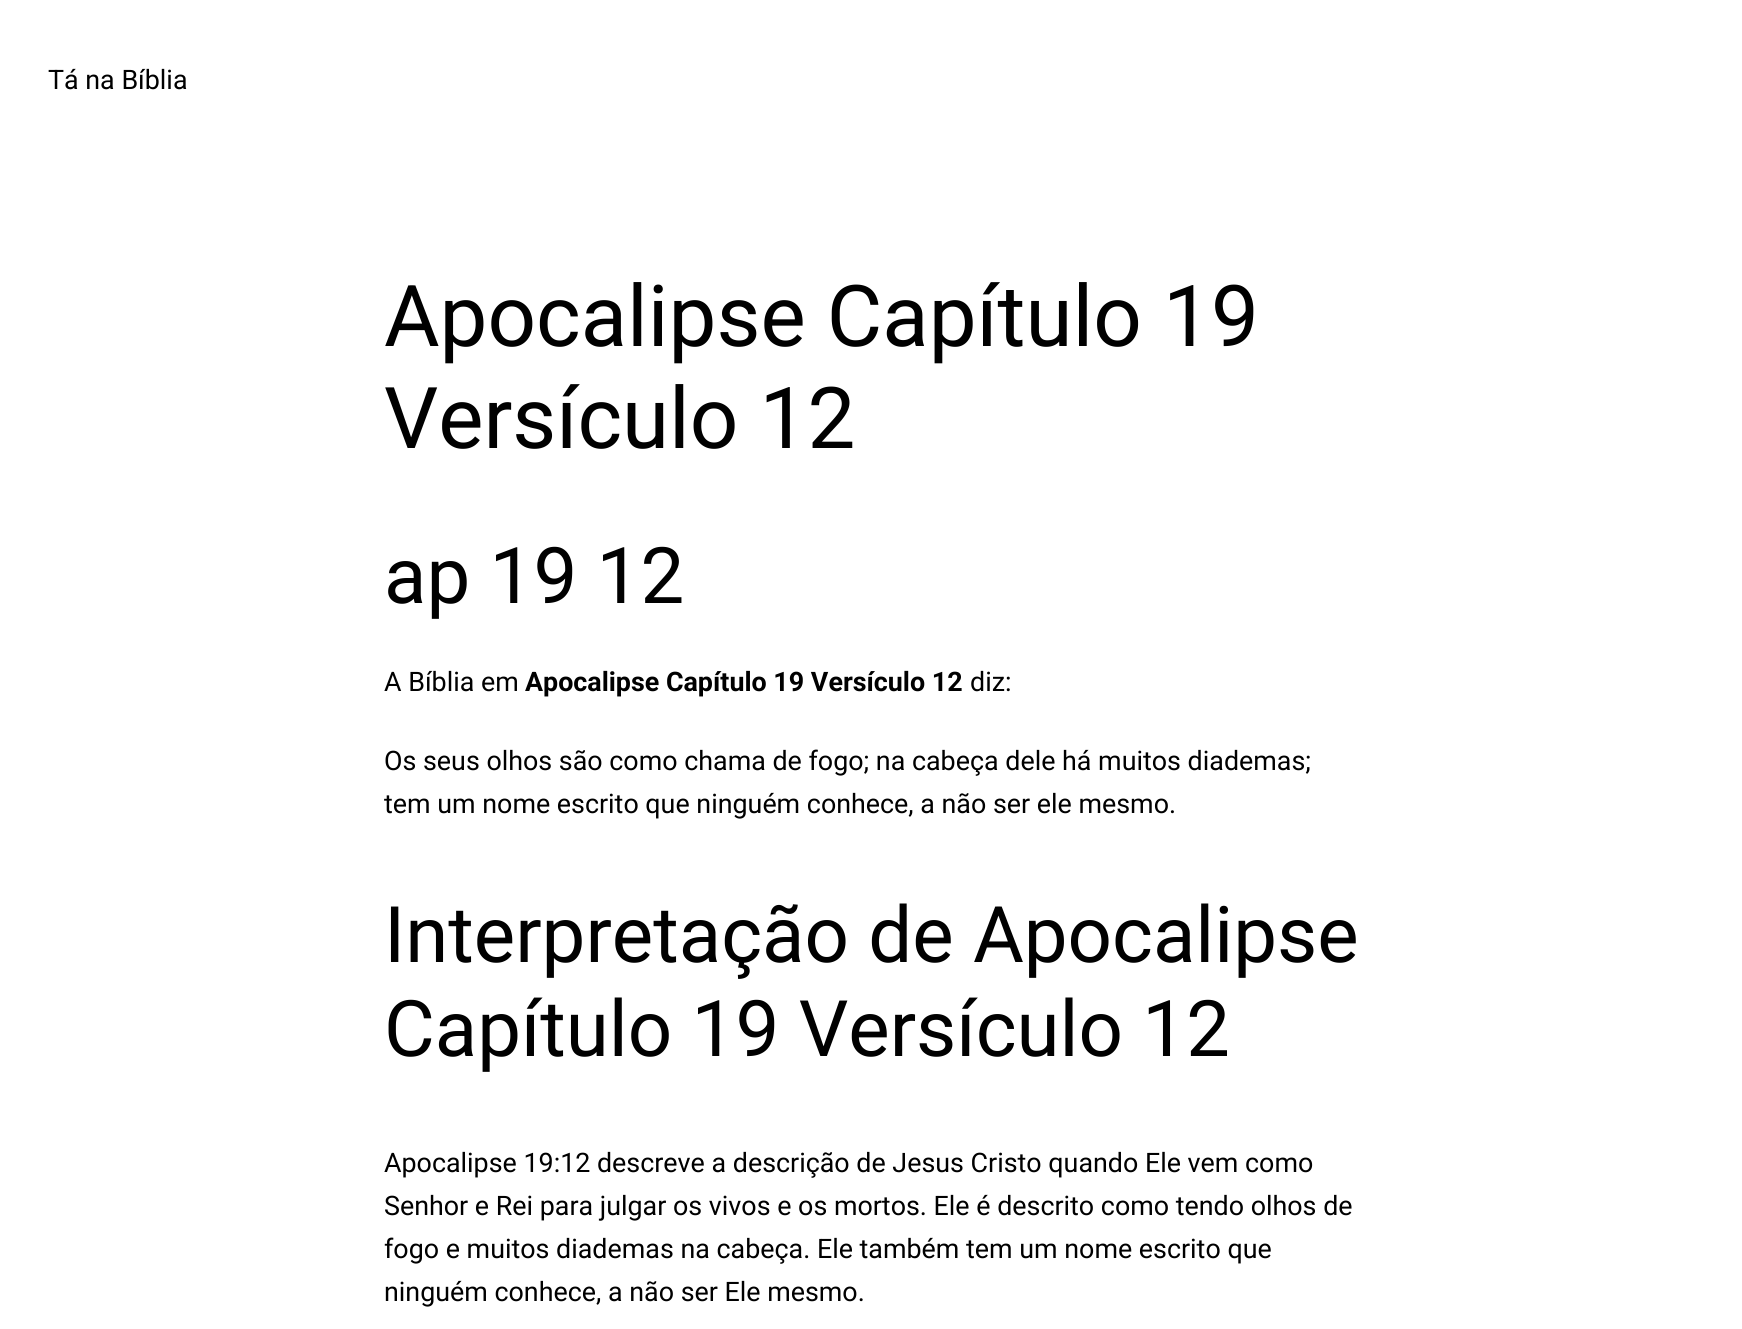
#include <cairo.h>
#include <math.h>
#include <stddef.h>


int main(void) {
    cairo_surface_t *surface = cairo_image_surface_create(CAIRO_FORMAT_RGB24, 1742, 1329);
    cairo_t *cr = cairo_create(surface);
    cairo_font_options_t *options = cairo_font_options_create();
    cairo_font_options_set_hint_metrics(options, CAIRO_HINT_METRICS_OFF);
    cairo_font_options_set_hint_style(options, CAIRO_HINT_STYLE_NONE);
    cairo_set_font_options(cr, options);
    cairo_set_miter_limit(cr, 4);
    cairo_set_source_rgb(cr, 1, 1, 1);
    cairo_paint(cr);
    cairo_select_font_face(cr, "Roboto", CAIRO_FONT_SLANT_NORMAL, CAIRO_FONT_WEIGHT_NORMAL);
    cairo_set_font_size(cr, 26.85);
    cairo_set_source_rgb(cr, 0, 0, 0);
    cairo_move_to(cr, 48, 89);
    cairo_show_text(cr, "Tá na Bíblia");
    cairo_set_font_size(cr, 85.25);
    cairo_move_to(cr, 384, 346);
    cairo_show_text(cr, "Apocalipse Capítulo 19");
    cairo_move_to(cr, 384, 448);
    cairo_show_text(cr, "Versículo 12");
    cairo_set_font_size(cr, 78);
    cairo_move_to(cr, 384, 603);
    cairo_show_text(cr, "ap 19 12");
    cairo_set_font_size(cr, 26.85);
    cairo_move_to(cr, 384, 691);
    cairo_show_text(cr, "A Bíblia em");
    cairo_select_font_face(cr, "Roboto", CAIRO_FONT_SLANT_NORMAL, CAIRO_FONT_WEIGHT_BOLD);
    cairo_move_to(cr, 525, 691);
    cairo_show_text(cr, "Apocalipse Capítulo 19 Versículo 12");
    cairo_select_font_face(cr, "Roboto", CAIRO_FONT_SLANT_NORMAL, CAIRO_FONT_WEIGHT_NORMAL);
    cairo_move_to(cr, 970, 691);
    cairo_show_text(cr, "diz:");
    cairo_move_to(cr, 384, 770);
    cairo_show_text(cr, "Os seus olhos são como chama de fogo; na cabeça dele há muitos diademas;");
    cairo_move_to(cr, 384, 813);
    cairo_show_text(cr, "tem um nome escrito que ninguém conhece, a não ser ele mesmo.");
    cairo_set_font_size(cr, 78);
    cairo_move_to(cr, 384, 962);
    cairo_show_text(cr, "Interpretação de Apocalipse");
    cairo_move_to(cr, 384, 1056);
    cairo_show_text(cr, "Capítulo 19 Versículo 12");
    cairo_set_font_size(cr, 26.85);
    cairo_move_to(cr, 384, 1172);
    cairo_show_text(cr, "Apocalipse 19:12 descreve a descrição de Jesus Cristo quando Ele vem como");
    cairo_move_to(cr, 384, 1215);
    cairo_show_text(cr, "Senhor e Rei para julgar os vivos e os mortos. Ele é descrito como tendo olhos de");
    cairo_move_to(cr, 384, 1258);
    cairo_show_text(cr, "fogo e muitos diademas na cabeça. Ele também tem um nome escrito que");
    cairo_move_to(cr, 384, 1301);
    cairo_show_text(cr, "ninguém conhece, a não ser Ele mesmo.");
    cairo_surface_write_to_png(surface, "page.png");
    cairo_font_options_destroy(options);
    cairo_destroy(cr);
    cairo_surface_destroy(surface);
    return 0;
}
